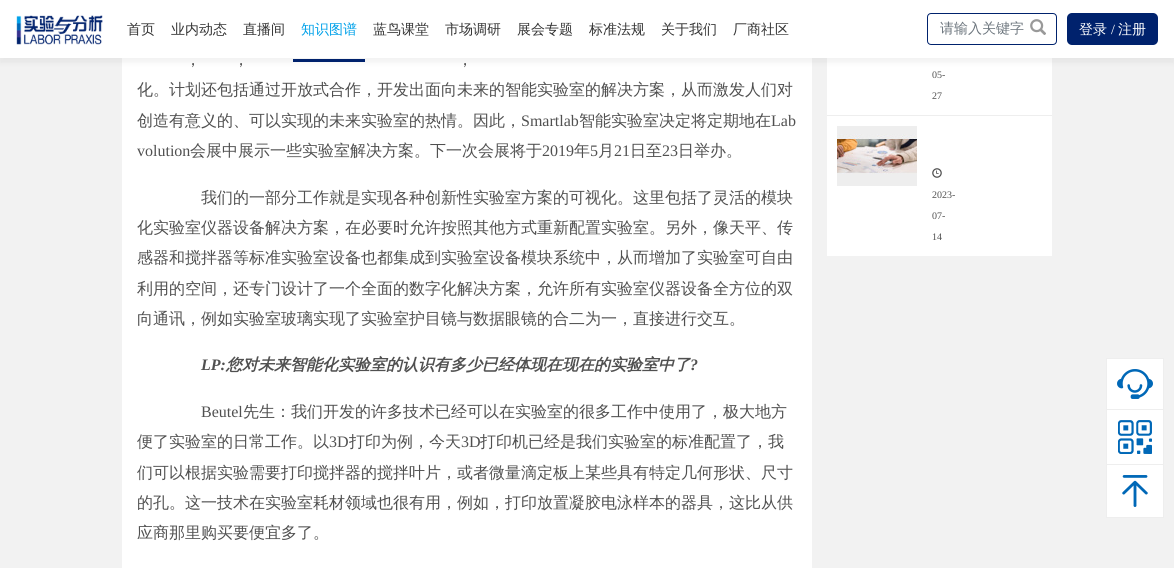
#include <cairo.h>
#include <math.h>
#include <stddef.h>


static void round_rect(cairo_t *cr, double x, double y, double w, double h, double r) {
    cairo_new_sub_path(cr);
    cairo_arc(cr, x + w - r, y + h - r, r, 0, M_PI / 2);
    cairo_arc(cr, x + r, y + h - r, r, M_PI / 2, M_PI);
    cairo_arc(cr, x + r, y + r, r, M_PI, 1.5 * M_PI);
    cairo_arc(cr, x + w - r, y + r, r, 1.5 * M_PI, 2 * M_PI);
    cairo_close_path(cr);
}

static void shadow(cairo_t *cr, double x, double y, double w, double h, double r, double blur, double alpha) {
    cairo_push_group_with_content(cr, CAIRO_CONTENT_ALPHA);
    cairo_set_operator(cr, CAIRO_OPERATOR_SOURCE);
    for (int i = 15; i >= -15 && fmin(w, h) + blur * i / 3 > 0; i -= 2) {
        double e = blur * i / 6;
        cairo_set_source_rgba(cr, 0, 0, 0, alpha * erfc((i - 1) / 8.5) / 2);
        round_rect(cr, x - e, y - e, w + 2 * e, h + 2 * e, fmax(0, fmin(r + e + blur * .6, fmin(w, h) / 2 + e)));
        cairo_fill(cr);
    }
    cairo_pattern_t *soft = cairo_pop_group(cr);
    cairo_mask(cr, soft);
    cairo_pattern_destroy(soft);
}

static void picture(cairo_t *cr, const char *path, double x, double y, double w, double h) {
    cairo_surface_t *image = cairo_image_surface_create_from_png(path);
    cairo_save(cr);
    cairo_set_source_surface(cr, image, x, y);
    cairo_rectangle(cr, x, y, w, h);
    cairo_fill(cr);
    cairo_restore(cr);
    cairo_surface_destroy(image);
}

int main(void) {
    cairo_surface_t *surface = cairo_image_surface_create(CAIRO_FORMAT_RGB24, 1174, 568);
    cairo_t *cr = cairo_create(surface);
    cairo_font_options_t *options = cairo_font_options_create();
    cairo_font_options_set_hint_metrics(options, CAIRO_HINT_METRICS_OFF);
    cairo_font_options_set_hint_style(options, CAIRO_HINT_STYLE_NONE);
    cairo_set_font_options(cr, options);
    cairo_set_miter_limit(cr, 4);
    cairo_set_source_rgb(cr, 0.949, 0.949, 0.949);
    cairo_paint(cr);
    cairo_set_source_rgb(cr, 1, 1, 1);
    cairo_rectangle(cr, 122, 58, 690, 510);
    cairo_fill(cr);
    cairo_rectangle(cr, 827, 58, 225, 198);
    cairo_fill(cr);
    cairo_set_source_rgb(cr, 0, 0, 0);
    shadow(cr, 0, 5, 1174, 58, 0, 2.5, 0.05);
    cairo_set_source_rgb(cr, 1, 1, 1);
    cairo_rectangle(cr, 0, 0, 1174, 58);
    cairo_fill(cr);
    picture(cr, "img1.png", 16, 15, 87, 30);
    cairo_select_font_face(cr, "WenQuanYi Zen Hei Medium", CAIRO_FONT_SLANT_NORMAL, CAIRO_FONT_WEIGHT_NORMAL);
    cairo_set_font_size(cr, 14);
    cairo_set_source_rgb(cr, 0.2, 0.2, 0.2);
    cairo_move_to(cr, 127, 34);
    cairo_show_text(cr, "首页");
    cairo_move_to(cr, 171, 34);
    cairo_show_text(cr, "业内动态");
    cairo_move_to(cr, 243, 34);
    cairo_show_text(cr, "直播间");
    cairo_set_source_rgb(cr, 0, 0.133, 0.427);
    cairo_rectangle(cr, 293, 59, 72, 3);
    cairo_fill(cr);
    cairo_set_source_rgb(cr, 0, 0.631, 0.914);
    cairo_move_to(cr, 301, 34);
    cairo_show_text(cr, "知识图谱");
    cairo_set_source_rgb(cr, 0.2, 0.2, 0.2);
    cairo_move_to(cr, 373, 34);
    cairo_show_text(cr, "蓝鸟课堂");
    cairo_move_to(cr, 445, 34);
    cairo_show_text(cr, "市场调研");
    cairo_move_to(cr, 517, 34);
    cairo_show_text(cr, "展会专题");
    cairo_move_to(cr, 589, 34);
    cairo_show_text(cr, "标准法规");
    cairo_move_to(cr, 661, 34);
    cairo_show_text(cr, "关于我们");
    cairo_move_to(cr, 733, 34);
    cairo_show_text(cr, "厂商社区");
    round_rect(cr, 927.5, 13.5, 129, 31, 3.5);
    cairo_set_source_rgb(cr, 0, 0.133, 0.427);
    cairo_set_line_width(cr, 1);
    cairo_stroke(cr);
    cairo_set_source_rgb(cr, 0.424, 0.459, 0.49);
    cairo_move_to(cr, 940, 33);
    cairo_show_text(cr, "请输入关键字");
    picture(cr, "img2.png", 1030, 19, 16, 16);
    cairo_set_source_rgb(cr, 0, 0.133, 0.427);
    round_rect(cr, 1067, 13, 91, 32, 5);
    cairo_fill(cr);
    cairo_set_source_rgb(cr, 1, 1, 1);
    cairo_move_to(cr, 1079, 34);
    cairo_show_text(cr, "登录");
    cairo_select_font_face(cr, "Liberation Serif", CAIRO_FONT_SLANT_NORMAL, CAIRO_FONT_WEIGHT_NORMAL);
    cairo_move_to(cr, 1111, 34);
    cairo_show_text(cr, "/");
    cairo_select_font_face(cr, "WenQuanYi Zen Hei Medium", CAIRO_FONT_SLANT_NORMAL, CAIRO_FONT_WEIGHT_NORMAL);
    cairo_move_to(cr, 1118, 34);
    cairo_show_text(cr, "注册");
    cairo_set_font_size(cr, 16);
    cairo_set_source_rgb(cr, 0.314, 0.314, 0.314);
    cairo_move_to(cr, 185, 65);
    cairo_show_text(cr, "，");
    cairo_move_to(cr, 233, 65);
    cairo_show_text(cr, "，");
    cairo_move_to(cr, 457, 65);
    cairo_show_text(cr, "，");
    cairo_move_to(cr, 137, 95);
    cairo_show_text(cr, "化。计划还包括通过开放式合作，开发出面向未来的智能实验室的解决方案，从而激发人们对");
    cairo_move_to(cr, 137, 126);
    cairo_show_text(cr, "创造有意义的、可以实现的未来实验室的热情。因此，");
    cairo_select_font_face(cr, "Liberation Serif", CAIRO_FONT_SLANT_NORMAL, CAIRO_FONT_WEIGHT_NORMAL);
    cairo_move_to(cr, 521, 126);
    cairo_show_text(cr, "Smartlab");
    cairo_select_font_face(cr, "WenQuanYi Zen Hei Medium", CAIRO_FONT_SLANT_NORMAL, CAIRO_FONT_WEIGHT_NORMAL);
    cairo_move_to(cr, 579, 126);
    cairo_show_text(cr, "智能实验室决定将定期地在");
    cairo_select_font_face(cr, "Liberation Serif", CAIRO_FONT_SLANT_NORMAL, CAIRO_FONT_WEIGHT_NORMAL);
    cairo_move_to(cr, 771, 126);
    cairo_show_text(cr, "Lab");
    cairo_move_to(cr, 137, 156);
    cairo_show_text(cr, "volution");
    cairo_select_font_face(cr, "WenQuanYi Zen Hei Medium", CAIRO_FONT_SLANT_NORMAL, CAIRO_FONT_WEIGHT_NORMAL);
    cairo_move_to(cr, 190, 156);
    cairo_show_text(cr, "会展中展示一些实验室解决方案。下一次会展将于");
    cairo_select_font_face(cr, "Liberation Serif", CAIRO_FONT_SLANT_NORMAL, CAIRO_FONT_WEIGHT_NORMAL);
    cairo_move_to(cr, 542, 156);
    cairo_show_text(cr, "2019");
    cairo_select_font_face(cr, "WenQuanYi Zen Hei Medium", CAIRO_FONT_SLANT_NORMAL, CAIRO_FONT_WEIGHT_NORMAL);
    cairo_move_to(cr, 574, 156);
    cairo_show_text(cr, "年");
    cairo_select_font_face(cr, "Liberation Serif", CAIRO_FONT_SLANT_NORMAL, CAIRO_FONT_WEIGHT_NORMAL);
    cairo_move_to(cr, 590, 156);
    cairo_show_text(cr, "5");
    cairo_select_font_face(cr, "WenQuanYi Zen Hei Medium", CAIRO_FONT_SLANT_NORMAL, CAIRO_FONT_WEIGHT_NORMAL);
    cairo_move_to(cr, 598, 156);
    cairo_show_text(cr, "月");
    cairo_select_font_face(cr, "Liberation Serif", CAIRO_FONT_SLANT_NORMAL, CAIRO_FONT_WEIGHT_NORMAL);
    cairo_move_to(cr, 614, 156);
    cairo_show_text(cr, "21");
    cairo_select_font_face(cr, "WenQuanYi Zen Hei Medium", CAIRO_FONT_SLANT_NORMAL, CAIRO_FONT_WEIGHT_NORMAL);
    cairo_move_to(cr, 630, 156);
    cairo_show_text(cr, "日至");
    cairo_select_font_face(cr, "Liberation Serif", CAIRO_FONT_SLANT_NORMAL, CAIRO_FONT_WEIGHT_NORMAL);
    cairo_move_to(cr, 662, 156);
    cairo_show_text(cr, "23");
    cairo_select_font_face(cr, "WenQuanYi Zen Hei Medium", CAIRO_FONT_SLANT_NORMAL, CAIRO_FONT_WEIGHT_NORMAL);
    cairo_move_to(cr, 678, 156);
    cairo_show_text(cr, "日举办。");
    cairo_move_to(cr, 201, 203);
    cairo_show_text(cr, "我们的一部分工作就是实现各种创新性实验室方案的可视化。这里包括了灵活的模块");
    cairo_move_to(cr, 137, 233);
    cairo_show_text(cr, "化实验室仪器设备解决方案，在必要时允许按照其他方式重新配置实验室。另外，像天平、传");
    cairo_move_to(cr, 137, 263);
    cairo_show_text(cr, "感器和搅拌器等标准实验室设备也都集成到实验室设备模块系统中，从而增加了实验室可自由");
    cairo_move_to(cr, 137, 294);
    cairo_show_text(cr, "利用的空间，还专门设计了一个全面的数字化解决方案，允许所有实验室仪器设备全方位的双");
    cairo_move_to(cr, 137, 324);
    cairo_show_text(cr, "向通讯，例如实验室玻璃实现了实验室护目镜与数据眼镜的合二为一，直接进行交互。");
    cairo_select_font_face(cr, "Liberation Serif", CAIRO_FONT_SLANT_ITALIC, CAIRO_FONT_WEIGHT_BOLD);
    cairo_move_to(cr, 201, 370);
    cairo_show_text(cr, "LP:");
    cairo_select_font_face(cr, "WenQuanYi Zen Hei", CAIRO_FONT_SLANT_ITALIC, CAIRO_FONT_WEIGHT_BOLD);
    cairo_move_to(cr, 226, 370);
    cairo_show_text(cr, "您对未来智能化实验室的认识有多少已经体现在现在的实验室中了");
    cairo_select_font_face(cr, "Liberation Serif", CAIRO_FONT_SLANT_ITALIC, CAIRO_FONT_WEIGHT_BOLD);
    cairo_move_to(cr, 690, 370);
    cairo_show_text(cr, "?");
    cairo_select_font_face(cr, "Liberation Serif", CAIRO_FONT_SLANT_NORMAL, CAIRO_FONT_WEIGHT_NORMAL);
    cairo_move_to(cr, 201, 417);
    cairo_show_text(cr, "Beutel");
    cairo_select_font_face(cr, "WenQuanYi Zen Hei Medium", CAIRO_FONT_SLANT_NORMAL, CAIRO_FONT_WEIGHT_NORMAL);
    cairo_move_to(cr, 243, 417);
    cairo_show_text(cr, "先生：我们开发的许多技术已经可以在实验室的很多工作中使用了，极大地方");
    cairo_move_to(cr, 137, 447);
    cairo_show_text(cr, "便了实验室的日常工作。以");
    cairo_select_font_face(cr, "Liberation Serif", CAIRO_FONT_SLANT_NORMAL, CAIRO_FONT_WEIGHT_NORMAL);
    cairo_move_to(cr, 329, 447);
    cairo_show_text(cr, "3D");
    cairo_select_font_face(cr, "WenQuanYi Zen Hei Medium", CAIRO_FONT_SLANT_NORMAL, CAIRO_FONT_WEIGHT_NORMAL);
    cairo_move_to(cr, 349, 447);
    cairo_show_text(cr, "打印为例，今天");
    cairo_select_font_face(cr, "Liberation Serif", CAIRO_FONT_SLANT_NORMAL, CAIRO_FONT_WEIGHT_NORMAL);
    cairo_move_to(cr, 461, 447);
    cairo_show_text(cr, "3D");
    cairo_select_font_face(cr, "WenQuanYi Zen Hei Medium", CAIRO_FONT_SLANT_NORMAL, CAIRO_FONT_WEIGHT_NORMAL);
    cairo_move_to(cr, 480, 447);
    cairo_show_text(cr, "打印机已经是我们实验室的标准配置了，我");
    cairo_move_to(cr, 137, 478);
    cairo_show_text(cr, "们可以根据实验需要打印搅拌器的搅拌叶片，或者微量滴定板上某些具有特定几何形状、尺寸");
    cairo_move_to(cr, 137, 508);
    cairo_show_text(cr, "的孔。这一技术在实验室耗材领域也很有用，例如，打印放置凝胶电泳样本的器具，这比从供");
    cairo_move_to(cr, 137, 538);
    cairo_show_text(cr, "应商那里购买要便宜多了。");
    cairo_select_font_face(cr, "Liberation Serif", CAIRO_FONT_SLANT_NORMAL, CAIRO_FONT_WEIGHT_NORMAL);
    cairo_set_font_size(cr, 10);
    cairo_move_to(cr, 932, 78);
    cairo_show_text(cr, "05-");
    cairo_move_to(cr, 932, 99);
    cairo_show_text(cr, "27");
    cairo_set_source_rgb(cr, 0.933, 0.933, 0.933);
    cairo_rectangle(cr, 827, 115, 225, 1);
    cairo_fill(cr);
    picture(cr, "img3.png", 837, 126, 80, 60);
    picture(cr, "img4.png", 932, 168, 10, 10);
    cairo_set_source_rgb(cr, 0.314, 0.314, 0.314);
    cairo_move_to(cr, 932, 198);
    cairo_show_text(cr, "2023-");
    cairo_move_to(cr, 932, 219);
    cairo_show_text(cr, "07-");
    cairo_move_to(cr, 932, 240);
    cairo_show_text(cr, "14");
    cairo_set_source_rgb(cr, 1, 1, 1);
    cairo_rectangle(cr, 1106.5, 358.5, 57, 51);
    cairo_fill_preserve(cr);
    cairo_set_source_rgb(cr, 0.933, 0.933, 0.933);
    cairo_stroke(cr);
    picture(cr, "img5.png", 1117, 369, 36, 30);
    cairo_set_source_rgb(cr, 1, 1, 1);
    cairo_rectangle(cr, 1106.5, 409.5, 57, 55);
    cairo_fill_preserve(cr);
    cairo_set_source_rgb(cr, 0.933, 0.933, 0.933);
    cairo_stroke(cr);
    picture(cr, "img6.png", 1118, 420, 34, 34);
    cairo_set_source_rgb(cr, 1, 1, 1);
    cairo_rectangle(cr, 1106.5, 464.5, 57, 53);
    cairo_fill_preserve(cr);
    cairo_set_source_rgb(cr, 0.933, 0.933, 0.933);
    cairo_stroke(cr);
    picture(cr, "img7.png", 1122, 475, 26, 32);
    cairo_surface_write_to_png(surface, "page.png");
    cairo_font_options_destroy(options);
    cairo_destroy(cr);
    cairo_surface_destroy(surface);
    return 0;
}
